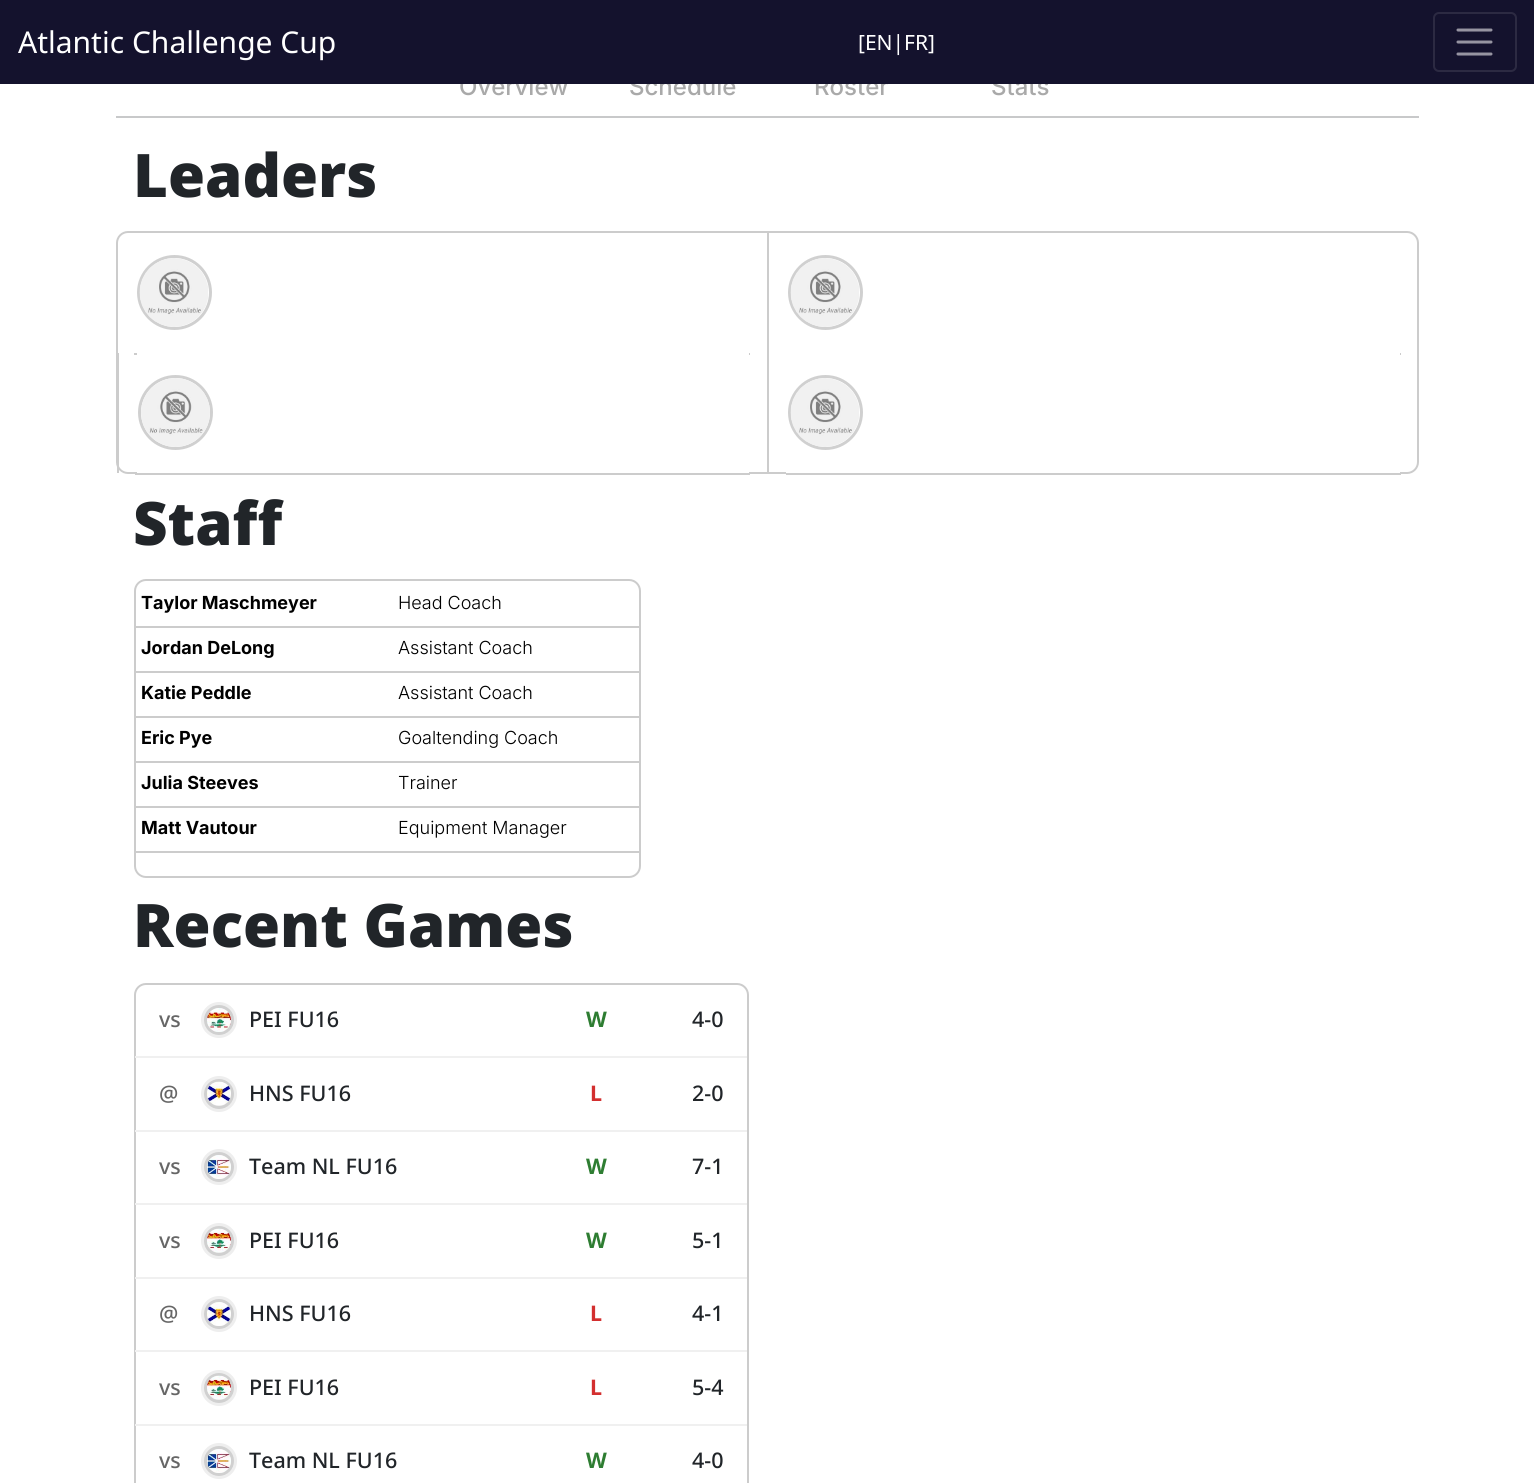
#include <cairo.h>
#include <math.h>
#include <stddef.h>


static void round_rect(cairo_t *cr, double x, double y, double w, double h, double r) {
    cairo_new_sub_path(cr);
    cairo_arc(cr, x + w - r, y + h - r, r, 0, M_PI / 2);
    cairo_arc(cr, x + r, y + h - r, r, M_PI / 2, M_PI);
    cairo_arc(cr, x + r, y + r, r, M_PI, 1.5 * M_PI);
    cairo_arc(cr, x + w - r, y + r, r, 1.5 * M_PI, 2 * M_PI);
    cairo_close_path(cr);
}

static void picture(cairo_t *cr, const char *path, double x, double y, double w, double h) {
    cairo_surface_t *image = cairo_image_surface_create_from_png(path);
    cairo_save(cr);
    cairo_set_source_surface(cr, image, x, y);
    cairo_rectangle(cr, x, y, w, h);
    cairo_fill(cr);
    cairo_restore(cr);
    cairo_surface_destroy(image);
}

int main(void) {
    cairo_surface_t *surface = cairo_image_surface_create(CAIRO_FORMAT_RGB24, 1534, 1483);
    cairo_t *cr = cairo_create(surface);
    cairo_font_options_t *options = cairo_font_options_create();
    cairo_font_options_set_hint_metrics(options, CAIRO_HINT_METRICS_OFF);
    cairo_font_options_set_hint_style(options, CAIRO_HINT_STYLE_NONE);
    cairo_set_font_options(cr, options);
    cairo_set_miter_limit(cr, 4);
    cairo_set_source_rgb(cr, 1, 1, 1);
    cairo_paint(cr);
    cairo_select_font_face(cr, "Inter Medium", CAIRO_FONT_SLANT_NORMAL, CAIRO_FONT_WEIGHT_NORMAL);
    cairo_set_font_size(cr, 24);
    cairo_set_source_rgb(cr, 0.663, 0.663, 0.663);
    cairo_move_to(cr, 459, 95);
    cairo_show_text(cr, "Overview");
    cairo_move_to(cr, 629, 95);
    cairo_show_text(cr, "Schedule");
    cairo_move_to(cr, 814, 95);
    cairo_show_text(cr, "Roster");
    cairo_move_to(cr, 991, 95);
    cairo_show_text(cr, "Stats");
    cairo_set_source_rgb(cr, 0.082, 0.071, 0.176);
    cairo_rectangle(cr, 0, 0, 1534, 84);
    cairo_fill(cr);
    cairo_select_font_face(cr, "Noto Sans", CAIRO_FONT_SLANT_NORMAL, CAIRO_FONT_WEIGHT_NORMAL);
    cairo_set_font_size(cr, 30);
    cairo_set_source_rgb(cr, 1, 1, 1);
    cairo_move_to(cr, 18, 53);
    cairo_show_text(cr, "Atlantic Challenge Cup");
    cairo_set_font_size(cr, 21);
    cairo_move_to(cr, 858, 50);
    cairo_show_text(cr, "[EN|FR]");
    round_rect(cr, 1434, 13, 82, 58, 5);
    cairo_set_source_rgb(cr, 0.173, 0.165, 0.259);
    cairo_stroke(cr);
    cairo_new_path(cr);
    cairo_move_to(cr, 1458, 30);
    cairo_line_to(cr, 1491, 30);
    cairo_move_to(cr, 1458, 42);
    cairo_line_to(cr, 1491, 42);
    cairo_move_to(cr, 1458, 54);
    cairo_line_to(cr, 1491, 54);
    cairo_set_source_rgb(cr, 0.588, 0.58, 0.631);
    cairo_set_line_width(cr, 3);
    cairo_set_line_cap(cr, CAIRO_LINE_CAP_ROUND);
    cairo_stroke(cr);
    cairo_set_source_rgb(cr, 0.784, 0.788, 0.792);
    cairo_rectangle(cr, 116, 116, 1303, 2);
    cairo_fill(cr);
    cairo_select_font_face(cr, "Noto Sans Black", CAIRO_FONT_SLANT_NORMAL, CAIRO_FONT_WEIGHT_NORMAL);
    cairo_set_font_size(cr, 60);
    cairo_set_source_rgb(cr, 0.129, 0.145, 0.161);
    cairo_move_to(cr, 133, 197);
    cairo_show_text(cr, "Leaders");
    round_rect(cr, 117, 232, 1301, 241, 11);
    cairo_set_source_rgb(cr, 0.8, 0.8, 0.8);
    cairo_set_line_width(cr, 2);
    cairo_set_line_cap(cr, CAIRO_LINE_CAP_BUTT);
    cairo_stroke(cr);
    cairo_rectangle(cr, 134, 353, 616, 2);
    cairo_fill(cr);
    cairo_arc(cr, 174.5, 292.5, 36, 0, 2 * M_PI);
    cairo_set_source_rgb(cr, 0.816, 0.816, 0.816);
    cairo_set_line_width(cr, 3);
    cairo_stroke(cr);
    picture(cr, "img1.png", 139, 258, 69, 69);
    cairo_set_source_rgb(cr, 0.8, 0.8, 0.8);
    cairo_rectangle(cr, 767, 233, 2, 240);
    cairo_fill(cr);
    cairo_rectangle(cr, 1400, 353, 1, 2);
    cairo_fill(cr);
    cairo_arc(cr, 825.5, 292.5, 36, 0, 2 * M_PI);
    cairo_set_source_rgb(cr, 0.816, 0.816, 0.816);
    cairo_stroke(cr);
    picture(cr, "img1.png", 790, 258, 69, 69);
    cairo_set_source_rgb(cr, 0.8, 0.8, 0.8);
    cairo_rectangle(cr, 117, 353, 2, 120);
    cairo_fill(cr);
    cairo_rectangle(cr, 135, 474, 615, 1);
    cairo_fill(cr);
    cairo_set_source_rgb(cr, 1, 1, 1);
    cairo_rectangle(cr, 137, 353, 612, 120);
    cairo_fill(cr);
    cairo_arc(cr, 175.5, 412.5, 36, 0, 2 * M_PI);
    cairo_set_source_rgb(cr, 0.816, 0.816, 0.816);
    cairo_stroke(cr);
    picture(cr, "img2.png", 141, 378, 69, 69);
    cairo_set_source_rgb(cr, 0.8, 0.8, 0.8);
    cairo_rectangle(cr, 786, 474, 615, 1);
    cairo_fill(cr);
    cairo_set_source_rgb(cr, 1, 1, 1);
    cairo_rectangle(cr, 786, 472, 614, 1);
    cairo_fill(cr);
    cairo_arc(cr, 825.5, 412.5, 36, 0, 2 * M_PI);
    cairo_set_source_rgb(cr, 0.816, 0.816, 0.816);
    cairo_stroke(cr);
    picture(cr, "img1.png", 790, 378, 69, 69);
    cairo_set_source_rgb(cr, 0.129, 0.145, 0.161);
    cairo_move_to(cr, 133, 545);
    cairo_show_text(cr, "Staff");
    round_rect(cr, 135, 580, 505, 297, 11);
    cairo_set_source_rgb(cr, 0.8, 0.8, 0.8);
    cairo_set_line_width(cr, 2);
    cairo_stroke(cr);
    cairo_rectangle(cr, 135, 626, 504, 2);
    cairo_fill(cr);
    cairo_select_font_face(cr, "Inter", CAIRO_FONT_SLANT_NORMAL, CAIRO_FONT_WEIGHT_BOLD);
    cairo_set_font_size(cr, 18);
    cairo_set_source_rgb(cr, 0, 0, 0);
    cairo_move_to(cr, 141, 609);
    cairo_show_text(cr, "Taylor Maschmeyer");
    cairo_select_font_face(cr, "Inter Light", CAIRO_FONT_SLANT_NORMAL, CAIRO_FONT_WEIGHT_NORMAL);
    cairo_move_to(cr, 398, 609);
    cairo_show_text(cr, "Head Coach");
    cairo_set_source_rgb(cr, 0.8, 0.8, 0.8);
    cairo_rectangle(cr, 135, 671, 504, 2);
    cairo_fill(cr);
    cairo_select_font_face(cr, "Inter", CAIRO_FONT_SLANT_NORMAL, CAIRO_FONT_WEIGHT_BOLD);
    cairo_set_source_rgb(cr, 0, 0, 0);
    cairo_move_to(cr, 141, 654);
    cairo_show_text(cr, "Jordan DeLong");
    cairo_select_font_face(cr, "Inter Light", CAIRO_FONT_SLANT_NORMAL, CAIRO_FONT_WEIGHT_NORMAL);
    cairo_move_to(cr, 398, 654);
    cairo_show_text(cr, "Assistant Coach");
    cairo_set_source_rgb(cr, 0.8, 0.8, 0.8);
    cairo_rectangle(cr, 135, 716, 504, 2);
    cairo_fill(cr);
    cairo_select_font_face(cr, "Inter", CAIRO_FONT_SLANT_NORMAL, CAIRO_FONT_WEIGHT_BOLD);
    cairo_set_source_rgb(cr, 0, 0, 0);
    cairo_move_to(cr, 141, 699);
    cairo_show_text(cr, "Katie Peddle");
    cairo_select_font_face(cr, "Inter Light", CAIRO_FONT_SLANT_NORMAL, CAIRO_FONT_WEIGHT_NORMAL);
    cairo_move_to(cr, 398, 699);
    cairo_show_text(cr, "Assistant Coach");
    cairo_set_source_rgb(cr, 0.8, 0.8, 0.8);
    cairo_rectangle(cr, 135, 761, 504, 2);
    cairo_fill(cr);
    cairo_select_font_face(cr, "Inter", CAIRO_FONT_SLANT_NORMAL, CAIRO_FONT_WEIGHT_BOLD);
    cairo_set_source_rgb(cr, 0, 0, 0);
    cairo_move_to(cr, 141, 744);
    cairo_show_text(cr, "Eric Pye");
    cairo_select_font_face(cr, "Inter Light", CAIRO_FONT_SLANT_NORMAL, CAIRO_FONT_WEIGHT_NORMAL);
    cairo_move_to(cr, 398, 744);
    cairo_show_text(cr, "Goaltending Coach");
    cairo_set_source_rgb(cr, 0.8, 0.8, 0.8);
    cairo_rectangle(cr, 135, 806, 504, 2);
    cairo_fill(cr);
    cairo_select_font_face(cr, "Inter", CAIRO_FONT_SLANT_NORMAL, CAIRO_FONT_WEIGHT_BOLD);
    cairo_set_source_rgb(cr, 0, 0, 0);
    cairo_move_to(cr, 141, 789);
    cairo_show_text(cr, "Julia Steeves");
    cairo_select_font_face(cr, "Inter Light", CAIRO_FONT_SLANT_NORMAL, CAIRO_FONT_WEIGHT_NORMAL);
    cairo_move_to(cr, 398, 789);
    cairo_show_text(cr, "Trainer");
    cairo_set_source_rgb(cr, 0.8, 0.8, 0.8);
    cairo_rectangle(cr, 135, 851, 504, 2);
    cairo_fill(cr);
    cairo_select_font_face(cr, "Inter", CAIRO_FONT_SLANT_NORMAL, CAIRO_FONT_WEIGHT_BOLD);
    cairo_set_source_rgb(cr, 0, 0, 0);
    cairo_move_to(cr, 141, 834);
    cairo_show_text(cr, "Matt Vautour");
    cairo_select_font_face(cr, "Inter Light", CAIRO_FONT_SLANT_NORMAL, CAIRO_FONT_WEIGHT_NORMAL);
    cairo_move_to(cr, 398, 834);
    cairo_show_text(cr, "Equipment Manager");
    cairo_select_font_face(cr, "Noto Sans Black", CAIRO_FONT_SLANT_NORMAL, CAIRO_FONT_WEIGHT_NORMAL);
    cairo_set_font_size(cr, 60);
    cairo_set_source_rgb(cr, 0.129, 0.145, 0.161);
    cairo_move_to(cr, 133, 947);
    cairo_show_text(cr, "Recent Games");
    round_rect(cr, 135, 984, 613, 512, 11);
    cairo_set_source_rgb(cr, 0.8, 0.8, 0.8);
    cairo_stroke(cr);
    cairo_set_source_rgb(cr, 0.941, 0.941, 0.941);
    cairo_rectangle(cr, 135, 1056, 612, 2);
    cairo_fill(cr);
    cairo_select_font_face(cr, "Noto Sans Medium", CAIRO_FONT_SLANT_NORMAL, CAIRO_FONT_WEIGHT_NORMAL);
    cairo_set_font_size(cr, 21.5);
    cairo_set_source_rgb(cr, 0.4, 0.4, 0.4);
    cairo_move_to(cr, 159, 1027);
    cairo_show_text(cr, "vs");
    cairo_set_source_rgb(cr, 0.933, 0.933, 0.933);
    cairo_new_path(cr);
    cairo_arc(cr, 219, 1020, 18, 0, 2 * M_PI);
    cairo_fill(cr);
    cairo_arc(cr, 219, 1020, 13.5, 0, 2 * M_PI);
    cairo_set_source_rgb(cr, 0.816, 0.816, 0.816);
    cairo_set_line_width(cr, 3);
    cairo_stroke(cr);
    picture(cr, "img3.png", 207, 1008, 24, 24);
    cairo_set_source_rgb(cr, 0.129, 0.145, 0.161);
    cairo_move_to(cr, 249, 1027);
    cairo_show_text(cr, "PEI FU16");
    cairo_select_font_face(cr, "Noto Sans", CAIRO_FONT_SLANT_NORMAL, CAIRO_FONT_WEIGHT_BOLD);
    cairo_set_source_rgb(cr, 0.18, 0.49, 0.196);
    cairo_move_to(cr, 586, 1027);
    cairo_show_text(cr, "W");
    cairo_select_font_face(cr, "Noto Sans Medium", CAIRO_FONT_SLANT_NORMAL, CAIRO_FONT_WEIGHT_NORMAL);
    cairo_set_source_rgb(cr, 0.129, 0.145, 0.161);
    cairo_move_to(cr, 692, 1027);
    cairo_show_text(cr, "4-0");
    cairo_set_source_rgb(cr, 0.941, 0.941, 0.941);
    cairo_rectangle(cr, 135, 1130, 612, 2);
    cairo_fill(cr);
    cairo_set_source_rgb(cr, 0.4, 0.4, 0.4);
    cairo_move_to(cr, 159, 1101);
    cairo_show_text(cr, "@");
    cairo_set_source_rgb(cr, 0.933, 0.933, 0.933);
    cairo_new_path(cr);
    cairo_arc(cr, 219, 1094, 18, 0, 2 * M_PI);
    cairo_fill(cr);
    cairo_arc(cr, 219, 1094, 13.5, 0, 2 * M_PI);
    cairo_set_source_rgb(cr, 0.816, 0.816, 0.816);
    cairo_stroke(cr);
    picture(cr, "img4.png", 207, 1081, 24, 25);
    cairo_set_source_rgb(cr, 0.129, 0.145, 0.161);
    cairo_move_to(cr, 249, 1101);
    cairo_show_text(cr, "HNS FU16");
    cairo_select_font_face(cr, "Noto Sans", CAIRO_FONT_SLANT_NORMAL, CAIRO_FONT_WEIGHT_BOLD);
    cairo_set_source_rgb(cr, 0.827, 0.184, 0.184);
    cairo_move_to(cr, 590, 1101);
    cairo_show_text(cr, "L");
    cairo_select_font_face(cr, "Noto Sans Medium", CAIRO_FONT_SLANT_NORMAL, CAIRO_FONT_WEIGHT_NORMAL);
    cairo_set_source_rgb(cr, 0.129, 0.145, 0.161);
    cairo_move_to(cr, 692, 1101);
    cairo_show_text(cr, "2-0");
    cairo_set_source_rgb(cr, 0.941, 0.941, 0.941);
    cairo_rectangle(cr, 135, 1203, 612, 2);
    cairo_fill(cr);
    cairo_set_source_rgb(cr, 0.4, 0.4, 0.4);
    cairo_move_to(cr, 159, 1174);
    cairo_show_text(cr, "vs");
    cairo_set_source_rgb(cr, 0.933, 0.933, 0.933);
    cairo_new_path(cr);
    cairo_arc(cr, 219, 1167, 18, 0, 2 * M_PI);
    cairo_fill(cr);
    cairo_arc(cr, 219, 1167, 13.5, 0, 2 * M_PI);
    cairo_set_source_rgb(cr, 0.816, 0.816, 0.816);
    cairo_stroke(cr);
    picture(cr, "img5.png", 207, 1155, 24, 24);
    cairo_set_source_rgb(cr, 0.129, 0.145, 0.161);
    cairo_move_to(cr, 249, 1174);
    cairo_show_text(cr, "Team NL FU16");
    cairo_select_font_face(cr, "Noto Sans", CAIRO_FONT_SLANT_NORMAL, CAIRO_FONT_WEIGHT_BOLD);
    cairo_set_source_rgb(cr, 0.18, 0.49, 0.196);
    cairo_move_to(cr, 586, 1174);
    cairo_show_text(cr, "W");
    cairo_select_font_face(cr, "Noto Sans Medium", CAIRO_FONT_SLANT_NORMAL, CAIRO_FONT_WEIGHT_NORMAL);
    cairo_set_source_rgb(cr, 0.129, 0.145, 0.161);
    cairo_move_to(cr, 692, 1174);
    cairo_show_text(cr, "7-1");
    cairo_set_source_rgb(cr, 0.941, 0.941, 0.941);
    cairo_rectangle(cr, 135, 1277, 612, 2);
    cairo_fill(cr);
    cairo_set_source_rgb(cr, 0.4, 0.4, 0.4);
    cairo_move_to(cr, 159, 1248);
    cairo_show_text(cr, "vs");
    cairo_set_source_rgb(cr, 0.933, 0.933, 0.933);
    cairo_new_path(cr);
    cairo_arc(cr, 219, 1241, 18, 0, 2 * M_PI);
    cairo_fill(cr);
    cairo_arc(cr, 219, 1241, 13.5, 0, 2 * M_PI);
    cairo_set_source_rgb(cr, 0.816, 0.816, 0.816);
    cairo_stroke(cr);
    picture(cr, "img6.png", 207, 1228, 24, 25);
    cairo_set_source_rgb(cr, 0.129, 0.145, 0.161);
    cairo_move_to(cr, 249, 1248);
    cairo_show_text(cr, "PEI FU16");
    cairo_select_font_face(cr, "Noto Sans", CAIRO_FONT_SLANT_NORMAL, CAIRO_FONT_WEIGHT_BOLD);
    cairo_set_source_rgb(cr, 0.18, 0.49, 0.196);
    cairo_move_to(cr, 586, 1248);
    cairo_show_text(cr, "W");
    cairo_select_font_face(cr, "Noto Sans Medium", CAIRO_FONT_SLANT_NORMAL, CAIRO_FONT_WEIGHT_NORMAL);
    cairo_set_source_rgb(cr, 0.129, 0.145, 0.161);
    cairo_move_to(cr, 692, 1248);
    cairo_show_text(cr, "5-1");
    cairo_set_source_rgb(cr, 0.941, 0.941, 0.941);
    cairo_rectangle(cr, 135, 1350, 612, 2);
    cairo_fill(cr);
    cairo_set_source_rgb(cr, 0.4, 0.4, 0.4);
    cairo_move_to(cr, 159, 1321);
    cairo_show_text(cr, "@");
    cairo_set_source_rgb(cr, 0.933, 0.933, 0.933);
    cairo_new_path(cr);
    cairo_arc(cr, 219, 1314, 18, 0, 2 * M_PI);
    cairo_fill(cr);
    cairo_arc(cr, 219, 1314, 13.5, 0, 2 * M_PI);
    cairo_set_source_rgb(cr, 0.816, 0.816, 0.816);
    cairo_stroke(cr);
    picture(cr, "img7.png", 207, 1302, 24, 24);
    cairo_set_source_rgb(cr, 0.129, 0.145, 0.161);
    cairo_move_to(cr, 249, 1321);
    cairo_show_text(cr, "HNS FU16");
    cairo_select_font_face(cr, "Noto Sans", CAIRO_FONT_SLANT_NORMAL, CAIRO_FONT_WEIGHT_BOLD);
    cairo_set_source_rgb(cr, 0.827, 0.184, 0.184);
    cairo_move_to(cr, 590, 1321);
    cairo_show_text(cr, "L");
    cairo_select_font_face(cr, "Noto Sans Medium", CAIRO_FONT_SLANT_NORMAL, CAIRO_FONT_WEIGHT_NORMAL);
    cairo_set_source_rgb(cr, 0.129, 0.145, 0.161);
    cairo_move_to(cr, 692, 1321);
    cairo_show_text(cr, "4-1");
    cairo_set_source_rgb(cr, 0.941, 0.941, 0.941);
    cairo_rectangle(cr, 135, 1424, 612, 2);
    cairo_fill(cr);
    cairo_set_source_rgb(cr, 0.4, 0.4, 0.4);
    cairo_move_to(cr, 159, 1395);
    cairo_show_text(cr, "vs");
    cairo_set_source_rgb(cr, 0.933, 0.933, 0.933);
    cairo_new_path(cr);
    cairo_arc(cr, 219, 1388, 18, 0, 2 * M_PI);
    cairo_fill(cr);
    cairo_arc(cr, 219, 1388, 13.5, 0, 2 * M_PI);
    cairo_set_source_rgb(cr, 0.816, 0.816, 0.816);
    cairo_stroke(cr);
    picture(cr, "img6.png", 207, 1375, 24, 25);
    cairo_set_source_rgb(cr, 0.129, 0.145, 0.161);
    cairo_move_to(cr, 249, 1395);
    cairo_show_text(cr, "PEI FU16");
    cairo_select_font_face(cr, "Noto Sans", CAIRO_FONT_SLANT_NORMAL, CAIRO_FONT_WEIGHT_BOLD);
    cairo_set_source_rgb(cr, 0.827, 0.184, 0.184);
    cairo_move_to(cr, 590, 1395);
    cairo_show_text(cr, "L");
    cairo_select_font_face(cr, "Noto Sans Medium", CAIRO_FONT_SLANT_NORMAL, CAIRO_FONT_WEIGHT_NORMAL);
    cairo_set_source_rgb(cr, 0.129, 0.145, 0.161);
    cairo_move_to(cr, 692, 1395);
    cairo_show_text(cr, "5-4");
    cairo_set_source_rgb(cr, 0.4, 0.4, 0.4);
    cairo_move_to(cr, 159, 1468);
    cairo_show_text(cr, "vs");
    cairo_set_source_rgb(cr, 0.933, 0.933, 0.933);
    cairo_new_path(cr);
    cairo_arc(cr, 219, 1461, 18, 0, 2 * M_PI);
    cairo_fill(cr);
    cairo_arc(cr, 219, 1461, 13.5, 0, 2 * M_PI);
    cairo_set_source_rgb(cr, 0.816, 0.816, 0.816);
    cairo_stroke(cr);
    picture(cr, "img8.png", 207, 1449, 24, 24);
    cairo_set_source_rgb(cr, 0.129, 0.145, 0.161);
    cairo_move_to(cr, 249, 1468);
    cairo_show_text(cr, "Team NL FU16");
    cairo_select_font_face(cr, "Noto Sans", CAIRO_FONT_SLANT_NORMAL, CAIRO_FONT_WEIGHT_BOLD);
    cairo_set_source_rgb(cr, 0.18, 0.49, 0.196);
    cairo_move_to(cr, 586, 1468);
    cairo_show_text(cr, "W");
    cairo_select_font_face(cr, "Noto Sans Medium", CAIRO_FONT_SLANT_NORMAL, CAIRO_FONT_WEIGHT_NORMAL);
    cairo_set_source_rgb(cr, 0.129, 0.145, 0.161);
    cairo_move_to(cr, 692, 1468);
    cairo_show_text(cr, "4-0");
    cairo_surface_write_to_png(surface, "page.png");
    cairo_font_options_destroy(options);
    cairo_destroy(cr);
    cairo_surface_destroy(surface);
    return 0;
}
